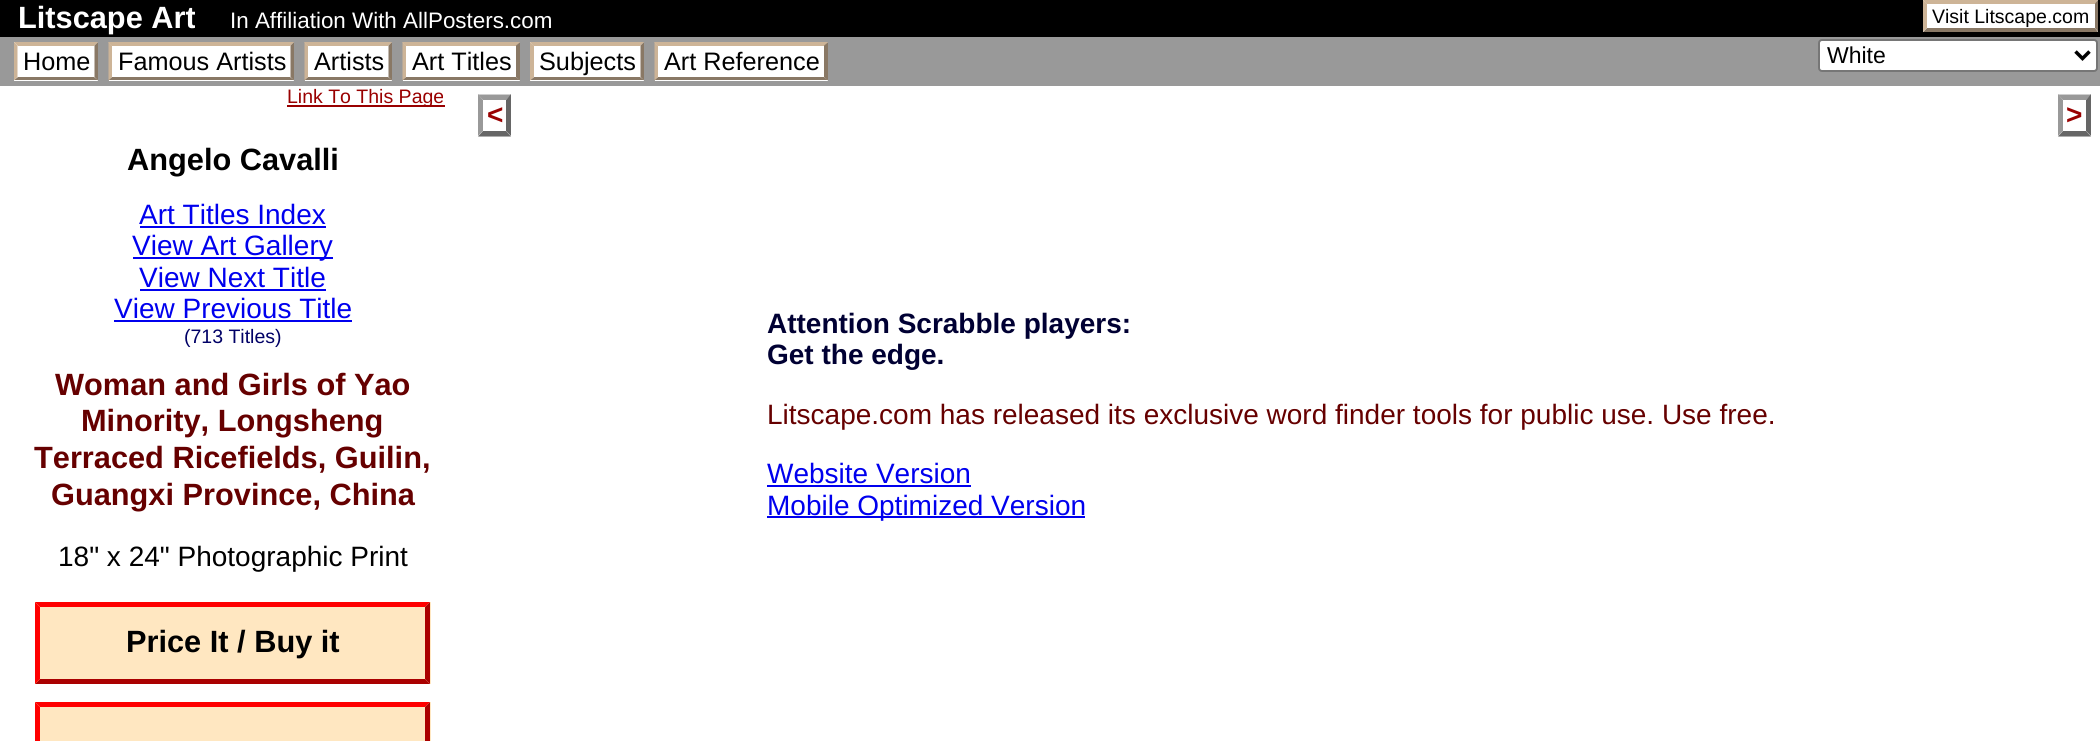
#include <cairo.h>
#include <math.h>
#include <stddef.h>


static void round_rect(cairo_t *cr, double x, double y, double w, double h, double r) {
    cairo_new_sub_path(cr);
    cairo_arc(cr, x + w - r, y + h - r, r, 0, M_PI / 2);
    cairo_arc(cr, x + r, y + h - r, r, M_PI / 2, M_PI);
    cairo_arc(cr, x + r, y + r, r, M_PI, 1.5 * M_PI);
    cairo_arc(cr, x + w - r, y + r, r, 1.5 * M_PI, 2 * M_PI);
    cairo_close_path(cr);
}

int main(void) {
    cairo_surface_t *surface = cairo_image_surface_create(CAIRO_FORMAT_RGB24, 2100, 741);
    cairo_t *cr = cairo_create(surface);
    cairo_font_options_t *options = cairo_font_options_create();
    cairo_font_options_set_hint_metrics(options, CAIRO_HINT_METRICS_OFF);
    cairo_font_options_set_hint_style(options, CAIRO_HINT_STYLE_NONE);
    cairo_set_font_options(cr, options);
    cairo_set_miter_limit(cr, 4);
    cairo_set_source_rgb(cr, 1, 1, 1);
    cairo_paint(cr);
    cairo_set_source_rgb(cr, 0, 0, 0);
    cairo_rectangle(cr, 0, 0, 2100, 37);
    cairo_fill(cr);
    cairo_select_font_face(cr, "Liberation Sans", CAIRO_FONT_SLANT_NORMAL, CAIRO_FONT_WEIGHT_BOLD);
    cairo_set_font_size(cr, 30.75);
    cairo_set_source_rgb(cr, 1, 1, 1);
    cairo_move_to(cr, 18, 28);
    cairo_show_text(cr, "Litscape Art");
    cairo_select_font_face(cr, "Liberation Sans", CAIRO_FONT_SLANT_NORMAL, CAIRO_FONT_WEIGHT_NORMAL);
    cairo_set_font_size(cr, 22.4);
    cairo_move_to(cr, 230, 28);
    cairo_show_text(cr, "In Affiliation With AllPosters.com");
    cairo_rectangle(cr, 1923, 0, 175, 32);
    cairo_fill(cr);
    cairo_set_source_rgb(cr, 0.804, 0.706, 0.592);
    cairo_new_path(cr);
    cairo_move_to(cr, 1923, 0);
    cairo_line_to(cr, 2098, 0);
    cairo_line_to(cr, 2095, 4);
    cairo_line_to(cr, 1927, 4);
    cairo_close_path(cr);
    cairo_fill(cr);
    cairo_set_source_rgb(cr, 0.537, 0.471, 0.396);
    cairo_new_path(cr);
    cairo_move_to(cr, 2098, 0);
    cairo_line_to(cr, 2098, 31.5);
    cairo_line_to(cr, 2095, 28);
    cairo_line_to(cr, 2095, 3.5);
    cairo_close_path(cr);
    cairo_fill(cr);
    cairo_new_path(cr);
    cairo_move_to(cr, 2098, 32);
    cairo_line_to(cr, 1923, 32);
    cairo_line_to(cr, 1927, 28);
    cairo_line_to(cr, 2095, 28);
    cairo_close_path(cr);
    cairo_fill(cr);
    cairo_set_source_rgb(cr, 0.804, 0.706, 0.592);
    cairo_new_path(cr);
    cairo_move_to(cr, 1923, 31.5);
    cairo_line_to(cr, 1923, 0);
    cairo_line_to(cr, 1927, 3.5);
    cairo_line_to(cr, 1927, 28);
    cairo_close_path(cr);
    cairo_fill(cr);
    cairo_set_font_size(cr, 19.5);
    cairo_set_source_rgb(cr, 0, 0, 0);
    cairo_move_to(cr, 1932, 23);
    cairo_show_text(cr, "Visit Litscape.com");
    cairo_set_source_rgb(cr, 0.6, 0.6, 0.6);
    cairo_rectangle(cr, 0, 37, 2100, 49);
    cairo_fill(cr);
    cairo_set_source_rgb(cr, 1, 1, 1);
    cairo_rectangle(cr, 14, 42, 84, 39);
    cairo_fill(cr);
    cairo_set_font_size(cr, 25.25);
    cairo_set_source_rgb(cr, 0, 0, 0);
    cairo_move_to(cr, 23, 70);
    cairo_show_text(cr, "Home");
    cairo_set_source_rgb(cr, 0.804, 0.706, 0.592);
    cairo_new_path(cr);
    cairo_move_to(cr, 14, 42);
    cairo_line_to(cr, 98, 42);
    cairo_line_to(cr, 94, 46);
    cairo_line_to(cr, 18, 46);
    cairo_close_path(cr);
    cairo_fill(cr);
    cairo_set_source_rgb(cr, 0.537, 0.471, 0.396);
    cairo_new_path(cr);
    cairo_move_to(cr, 98, 42);
    cairo_line_to(cr, 98, 80.5);
    cairo_line_to(cr, 94.5, 77);
    cairo_line_to(cr, 94.5, 45.5);
    cairo_close_path(cr);
    cairo_fill(cr);
    cairo_new_path(cr);
    cairo_move_to(cr, 98, 80);
    cairo_line_to(cr, 14, 80);
    cairo_line_to(cr, 18, 77);
    cairo_line_to(cr, 94, 77);
    cairo_close_path(cr);
    cairo_fill(cr);
    cairo_set_source_rgb(cr, 0.804, 0.706, 0.592);
    cairo_new_path(cr);
    cairo_move_to(cr, 14, 80.5);
    cairo_line_to(cr, 14, 42);
    cairo_line_to(cr, 17.5, 45.5);
    cairo_line_to(cr, 17.5, 77);
    cairo_close_path(cr);
    cairo_fill(cr);
    cairo_set_source_rgb(cr, 1, 1, 1);
    cairo_rectangle(cr, 109, 42, 185, 39);
    cairo_fill(cr);
    cairo_set_source_rgb(cr, 0, 0, 0);
    cairo_move_to(cr, 118, 70);
    cairo_show_text(cr, "Famous Artists");
    cairo_set_source_rgb(cr, 0.804, 0.706, 0.592);
    cairo_new_path(cr);
    cairo_move_to(cr, 108, 42);
    cairo_line_to(cr, 294, 42);
    cairo_line_to(cr, 290, 46);
    cairo_line_to(cr, 112, 46);
    cairo_close_path(cr);
    cairo_fill(cr);
    cairo_set_source_rgb(cr, 0.537, 0.471, 0.396);
    cairo_new_path(cr);
    cairo_move_to(cr, 294, 42);
    cairo_line_to(cr, 294, 80.5);
    cairo_line_to(cr, 290.5, 77);
    cairo_line_to(cr, 290.5, 45.5);
    cairo_close_path(cr);
    cairo_fill(cr);
    cairo_new_path(cr);
    cairo_move_to(cr, 294, 80);
    cairo_line_to(cr, 108, 80);
    cairo_line_to(cr, 112, 77);
    cairo_line_to(cr, 290, 77);
    cairo_close_path(cr);
    cairo_fill(cr);
    cairo_set_source_rgb(cr, 0.804, 0.706, 0.592);
    cairo_new_path(cr);
    cairo_move_to(cr, 108.5, 80.5);
    cairo_line_to(cr, 108.5, 42);
    cairo_line_to(cr, 112, 45.5);
    cairo_line_to(cr, 112, 77);
    cairo_close_path(cr);
    cairo_fill(cr);
    cairo_set_source_rgb(cr, 1, 1, 1);
    cairo_rectangle(cr, 305, 42, 87, 39);
    cairo_fill(cr);
    cairo_set_source_rgb(cr, 0, 0, 0);
    cairo_move_to(cr, 314, 70);
    cairo_show_text(cr, "Artists");
    cairo_set_source_rgb(cr, 0.804, 0.706, 0.592);
    cairo_new_path(cr);
    cairo_move_to(cr, 304, 42);
    cairo_line_to(cr, 392, 42);
    cairo_line_to(cr, 388, 46);
    cairo_line_to(cr, 308, 46);
    cairo_close_path(cr);
    cairo_fill(cr);
    cairo_set_source_rgb(cr, 0.537, 0.471, 0.396);
    cairo_new_path(cr);
    cairo_move_to(cr, 392, 42);
    cairo_line_to(cr, 392, 80.5);
    cairo_line_to(cr, 388.5, 77);
    cairo_line_to(cr, 388.5, 45.5);
    cairo_close_path(cr);
    cairo_fill(cr);
    cairo_new_path(cr);
    cairo_move_to(cr, 392, 80);
    cairo_line_to(cr, 304, 80);
    cairo_line_to(cr, 308, 77);
    cairo_line_to(cr, 388, 77);
    cairo_close_path(cr);
    cairo_fill(cr);
    cairo_set_source_rgb(cr, 0.804, 0.706, 0.592);
    cairo_new_path(cr);
    cairo_move_to(cr, 304.5, 80.5);
    cairo_line_to(cr, 304.5, 42);
    cairo_line_to(cr, 308, 45.5);
    cairo_line_to(cr, 308, 77);
    cairo_close_path(cr);
    cairo_fill(cr);
    cairo_set_source_rgb(cr, 1, 1, 1);
    cairo_rectangle(cr, 403, 42, 117, 39);
    cairo_fill(cr);
    cairo_set_source_rgb(cr, 0, 0, 0);
    cairo_move_to(cr, 412, 70);
    cairo_show_text(cr, "Art Titles");
    cairo_set_source_rgb(cr, 0.804, 0.706, 0.592);
    cairo_new_path(cr);
    cairo_move_to(cr, 402, 42);
    cairo_line_to(cr, 520, 42);
    cairo_line_to(cr, 516, 46);
    cairo_line_to(cr, 406, 46);
    cairo_close_path(cr);
    cairo_fill(cr);
    cairo_set_source_rgb(cr, 0.537, 0.471, 0.396);
    cairo_new_path(cr);
    cairo_move_to(cr, 520, 42);
    cairo_line_to(cr, 520, 80.5);
    cairo_line_to(cr, 516, 77);
    cairo_line_to(cr, 516, 45.5);
    cairo_close_path(cr);
    cairo_fill(cr);
    cairo_new_path(cr);
    cairo_move_to(cr, 520, 80);
    cairo_line_to(cr, 402, 80);
    cairo_line_to(cr, 406, 77);
    cairo_line_to(cr, 516, 77);
    cairo_close_path(cr);
    cairo_fill(cr);
    cairo_set_source_rgb(cr, 0.804, 0.706, 0.592);
    cairo_new_path(cr);
    cairo_move_to(cr, 402.5, 80.5);
    cairo_line_to(cr, 402.5, 42);
    cairo_line_to(cr, 406, 45.5);
    cairo_line_to(cr, 406, 77);
    cairo_close_path(cr);
    cairo_fill(cr);
    cairo_set_source_rgb(cr, 1, 1, 1);
    cairo_rectangle(cr, 530, 42, 114, 39);
    cairo_fill(cr);
    cairo_set_source_rgb(cr, 0, 0, 0);
    cairo_move_to(cr, 539, 70);
    cairo_show_text(cr, "Subjects");
    cairo_set_source_rgb(cr, 0.804, 0.706, 0.592);
    cairo_new_path(cr);
    cairo_move_to(cr, 530, 42);
    cairo_line_to(cr, 644, 42);
    cairo_line_to(cr, 640, 46);
    cairo_line_to(cr, 534, 46);
    cairo_close_path(cr);
    cairo_fill(cr);
    cairo_set_source_rgb(cr, 0.537, 0.471, 0.396);
    cairo_new_path(cr);
    cairo_move_to(cr, 644, 42);
    cairo_line_to(cr, 644, 80.5);
    cairo_line_to(cr, 640.5, 77);
    cairo_line_to(cr, 640.5, 45.5);
    cairo_close_path(cr);
    cairo_fill(cr);
    cairo_new_path(cr);
    cairo_move_to(cr, 644, 80);
    cairo_line_to(cr, 530, 80);
    cairo_line_to(cr, 534, 77);
    cairo_line_to(cr, 640, 77);
    cairo_close_path(cr);
    cairo_fill(cr);
    cairo_set_source_rgb(cr, 0.804, 0.706, 0.592);
    cairo_new_path(cr);
    cairo_move_to(cr, 530, 80.5);
    cairo_line_to(cr, 530, 42);
    cairo_line_to(cr, 534, 45.5);
    cairo_line_to(cr, 534, 77);
    cairo_close_path(cr);
    cairo_fill(cr);
    cairo_set_source_rgb(cr, 1, 1, 1);
    cairo_rectangle(cr, 655, 42, 173, 39);
    cairo_fill(cr);
    cairo_set_source_rgb(cr, 0, 0, 0);
    cairo_move_to(cr, 664, 70);
    cairo_show_text(cr, "Art Reference");
    cairo_set_source_rgb(cr, 0.804, 0.706, 0.592);
    cairo_new_path(cr);
    cairo_move_to(cr, 654, 42);
    cairo_line_to(cr, 828, 42);
    cairo_line_to(cr, 824, 46);
    cairo_line_to(cr, 658, 46);
    cairo_close_path(cr);
    cairo_fill(cr);
    cairo_set_source_rgb(cr, 0.537, 0.471, 0.396);
    cairo_new_path(cr);
    cairo_move_to(cr, 828, 42);
    cairo_line_to(cr, 828, 80.5);
    cairo_line_to(cr, 824, 77);
    cairo_line_to(cr, 824, 45.5);
    cairo_close_path(cr);
    cairo_fill(cr);
    cairo_new_path(cr);
    cairo_move_to(cr, 828, 80);
    cairo_line_to(cr, 654, 80);
    cairo_line_to(cr, 658, 77);
    cairo_line_to(cr, 824, 77);
    cairo_close_path(cr);
    cairo_fill(cr);
    cairo_set_source_rgb(cr, 0.804, 0.706, 0.592);
    cairo_new_path(cr);
    cairo_move_to(cr, 654.5, 80.5);
    cairo_line_to(cr, 654.5, 42);
    cairo_line_to(cr, 658, 45.5);
    cairo_line_to(cr, 658, 77);
    cairo_close_path(cr);
    cairo_fill(cr);
    cairo_set_source_rgb(cr, 1, 1, 1);
    round_rect(cr, 1819, 40, 278, 31, 3);
    cairo_fill_preserve(cr);
    cairo_set_source_rgb(cr, 0.463, 0.463, 0.463);
    cairo_stroke(cr);
    cairo_new_path(cr);
    cairo_move_to(cr, 2075.5, 51.5);
    cairo_line_to(cr, 2082.5, 58.5);
    cairo_line_to(cr, 2089.5, 51.5);
    cairo_set_source_rgb(cr, 0, 0, 0);
    cairo_set_line_width(cr, 3.5);
    cairo_stroke(cr);
    cairo_set_font_size(cr, 23);
    cairo_move_to(cr, 1827, 63);
    cairo_show_text(cr, "White");
    cairo_set_source_rgb(cr, 0.6, 0, 0);
    cairo_rectangle(cr, 287, 105, 158, 2);
    cairo_fill(cr);
    cairo_set_font_size(cr, 19.5);
    cairo_move_to(cr, 287, 103);
    cairo_show_text(cr, "Link To This Page");
    cairo_select_font_face(cr, "Liberation Sans", CAIRO_FONT_SLANT_NORMAL, CAIRO_FONT_WEIGHT_BOLD);
    cairo_set_font_size(cr, 30.75);
    cairo_set_source_rgb(cr, 0, 0, 0);
    cairo_move_to(cr, 127, 170);
    cairo_show_text(cr, "Angelo Cavalli");
    cairo_select_font_face(cr, "Liberation Sans", CAIRO_FONT_SLANT_NORMAL, CAIRO_FONT_WEIGHT_NORMAL);
    cairo_set_font_size(cr, 28);
    cairo_set_source_rgb(cr, 0, 0, 0.933);
    cairo_move_to(cr, 139, 224);
    cairo_show_text(cr, "Art Titles Index");
    cairo_rectangle(cr, 140, 226, 186, 2);
    cairo_fill(cr);
    cairo_rectangle(cr, 133, 257, 200, 2);
    cairo_fill(cr);
    cairo_move_to(cr, 132, 255);
    cairo_show_text(cr, "View Art Gallery");
    cairo_move_to(cr, 139, 287);
    cairo_show_text(cr, "View Next Title");
    cairo_rectangle(cr, 140, 289, 186, 2);
    cairo_fill(cr);
    cairo_move_to(cr, 114, 318);
    cairo_show_text(cr, "View Previous Title");
    cairo_rectangle(cr, 114, 320, 238, 2);
    cairo_fill(cr);
    cairo_set_font_size(cr, 19.5);
    cairo_set_source_rgb(cr, 0, 0, 0.4);
    cairo_move_to(cr, 184, 343);
    cairo_show_text(cr, "(713 Titles)");
    cairo_select_font_face(cr, "Liberation Sans", CAIRO_FONT_SLANT_NORMAL, CAIRO_FONT_WEIGHT_BOLD);
    cairo_set_font_size(cr, 30.75);
    cairo_set_source_rgb(cr, 0.4, 0, 0);
    cairo_move_to(cr, 55, 395);
    cairo_show_text(cr, "Woman and Girls of Yao");
    cairo_move_to(cr, 81, 431);
    cairo_show_text(cr, "Minority, Longsheng");
    cairo_move_to(cr, 34, 468);
    cairo_show_text(cr, "Terraced Ricefields, Guilin,");
    cairo_move_to(cr, 51, 505);
    cairo_show_text(cr, "Guangxi Province, China");
    cairo_select_font_face(cr, "Liberation Sans", CAIRO_FONT_SLANT_NORMAL, CAIRO_FONT_WEIGHT_NORMAL);
    cairo_set_font_size(cr, 28);
    cairo_set_source_rgb(cr, 0, 0, 0);
    cairo_move_to(cr, 58, 566);
    cairo_show_text(cr, "18\" x 24\" Photographic Print");
    cairo_set_source_rgb(cr, 1, 0.906, 0.757);
    cairo_rectangle(cr, 35, 602, 396, 82);
    cairo_fill(cr);
    cairo_set_source_rgb(cr, 1, 0, 0);
    cairo_new_path(cr);
    cairo_move_to(cr, 35, 602);
    cairo_line_to(cr, 430, 602);
    cairo_line_to(cr, 425, 607);
    cairo_line_to(cr, 40, 607);
    cairo_close_path(cr);
    cairo_fill(cr);
    cairo_set_source_rgb(cr, 0.667, 0, 0);
    cairo_new_path(cr);
    cairo_move_to(cr, 430, 602);
    cairo_line_to(cr, 430, 684);
    cairo_line_to(cr, 425, 679);
    cairo_line_to(cr, 425, 607);
    cairo_close_path(cr);
    cairo_fill(cr);
    cairo_new_path(cr);
    cairo_move_to(cr, 430, 684);
    cairo_line_to(cr, 35, 684);
    cairo_line_to(cr, 40, 679);
    cairo_line_to(cr, 425, 679);
    cairo_close_path(cr);
    cairo_fill(cr);
    cairo_set_source_rgb(cr, 1, 0, 0);
    cairo_new_path(cr);
    cairo_move_to(cr, 35, 684);
    cairo_line_to(cr, 35, 602);
    cairo_line_to(cr, 40, 607);
    cairo_line_to(cr, 40, 679);
    cairo_close_path(cr);
    cairo_fill(cr);
    cairo_select_font_face(cr, "Liberation Sans", CAIRO_FONT_SLANT_NORMAL, CAIRO_FONT_WEIGHT_BOLD);
    cairo_set_font_size(cr, 30.75);
    cairo_set_source_rgb(cr, 0, 0, 0);
    cairo_move_to(cr, 126, 652);
    cairo_show_text(cr, "Price It / Buy it");
    cairo_set_source_rgb(cr, 1, 0.906, 0.757);
    cairo_rectangle(cr, 35, 702, 396, 39);
    cairo_fill(cr);
    cairo_set_source_rgb(cr, 1, 0, 0);
    cairo_new_path(cr);
    cairo_move_to(cr, 35, 702);
    cairo_line_to(cr, 430, 702);
    cairo_line_to(cr, 425, 707);
    cairo_line_to(cr, 40, 707);
    cairo_close_path(cr);
    cairo_fill(cr);
    cairo_set_source_rgb(cr, 0.667, 0, 0);
    cairo_new_path(cr);
    cairo_move_to(cr, 430, 702);
    cairo_line_to(cr, 430, 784);
    cairo_line_to(cr, 425, 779);
    cairo_line_to(cr, 425, 707);
    cairo_close_path(cr);
    cairo_fill(cr);
    cairo_set_source_rgb(cr, 1, 0, 0);
    cairo_new_path(cr);
    cairo_move_to(cr, 35, 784);
    cairo_line_to(cr, 35, 702);
    cairo_line_to(cr, 40, 707);
    cairo_line_to(cr, 40, 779);
    cairo_close_path(cr);
    cairo_fill(cr);
    cairo_set_source_rgb(cr, 0.6, 0.6, 0.6);
    cairo_new_path(cr);
    cairo_move_to(cr, 478, 94.5);
    cairo_line_to(cr, 511, 94.5);
    cairo_line_to(cr, 506, 100);
    cairo_line_to(cr, 483, 100);
    cairo_close_path(cr);
    cairo_fill(cr);
    cairo_set_source_rgb(cr, 0.4, 0.4, 0.4);
    cairo_new_path(cr);
    cairo_move_to(cr, 511, 94);
    cairo_line_to(cr, 511, 136);
    cairo_line_to(cr, 506, 131);
    cairo_line_to(cr, 506, 100);
    cairo_close_path(cr);
    cairo_fill(cr);
    cairo_new_path(cr);
    cairo_move_to(cr, 511, 136.5);
    cairo_line_to(cr, 478, 136.5);
    cairo_line_to(cr, 483, 131);
    cairo_line_to(cr, 506, 131);
    cairo_close_path(cr);
    cairo_fill(cr);
    cairo_set_source_rgb(cr, 0.6, 0.6, 0.6);
    cairo_new_path(cr);
    cairo_move_to(cr, 478, 136);
    cairo_line_to(cr, 478, 94);
    cairo_line_to(cr, 483, 100);
    cairo_line_to(cr, 483, 131);
    cairo_close_path(cr);
    cairo_fill(cr);
    cairo_set_font_size(cr, 28);
    cairo_set_source_rgb(cr, 0.6, 0, 0);
    cairo_move_to(cr, 487, 124);
    cairo_show_text(cr, "<");
    cairo_set_source_rgb(cr, 0.6, 0.6, 0.6);
    cairo_new_path(cr);
    cairo_move_to(cr, 2058, 94.5);
    cairo_line_to(cr, 2091, 94.5);
    cairo_line_to(cr, 2086, 100);
    cairo_line_to(cr, 2063, 100);
    cairo_close_path(cr);
    cairo_fill(cr);
    cairo_set_source_rgb(cr, 0.4, 0.4, 0.4);
    cairo_new_path(cr);
    cairo_move_to(cr, 2091, 94);
    cairo_line_to(cr, 2091, 136);
    cairo_line_to(cr, 2086, 131);
    cairo_line_to(cr, 2086, 100);
    cairo_close_path(cr);
    cairo_fill(cr);
    cairo_new_path(cr);
    cairo_move_to(cr, 2091, 136.5);
    cairo_line_to(cr, 2058, 136.5);
    cairo_line_to(cr, 2063, 131);
    cairo_line_to(cr, 2086, 131);
    cairo_close_path(cr);
    cairo_fill(cr);
    cairo_set_source_rgb(cr, 0.6, 0.6, 0.6);
    cairo_new_path(cr);
    cairo_move_to(cr, 2058, 136);
    cairo_line_to(cr, 2058, 94);
    cairo_line_to(cr, 2063, 100);
    cairo_line_to(cr, 2063, 131);
    cairo_close_path(cr);
    cairo_fill(cr);
    cairo_set_source_rgb(cr, 0.6, 0, 0);
    cairo_move_to(cr, 2066, 124);
    cairo_show_text(cr, ">");
    cairo_set_source_rgb(cr, 0, 0, 0.2);
    cairo_move_to(cr, 767, 333);
    cairo_show_text(cr, "Attention Scrabble players:");
    cairo_move_to(cr, 767, 364);
    cairo_show_text(cr, "Get the edge.");
    cairo_select_font_face(cr, "Liberation Sans", CAIRO_FONT_SLANT_NORMAL, CAIRO_FONT_WEIGHT_NORMAL);
    cairo_set_source_rgb(cr, 0.4, 0, 0);
    cairo_move_to(cr, 767, 424);
    cairo_show_text(cr, "Litscape.com has released its exclusive word finder tools for public use. Use free.");
    cairo_set_source_rgb(cr, 0, 0, 0.933);
    cairo_move_to(cr, 767, 483);
    cairo_show_text(cr, "Website Version");
    cairo_rectangle(cr, 767, 485, 204, 2);
    cairo_fill(cr);
    cairo_rectangle(cr, 767, 516, 318, 2);
    cairo_fill(cr);
    cairo_move_to(cr, 767, 515);
    cairo_show_text(cr, "Mobile Optimized Version");
    cairo_surface_write_to_png(surface, "page.png");
    cairo_font_options_destroy(options);
    cairo_destroy(cr);
    cairo_surface_destroy(surface);
    return 0;
}
